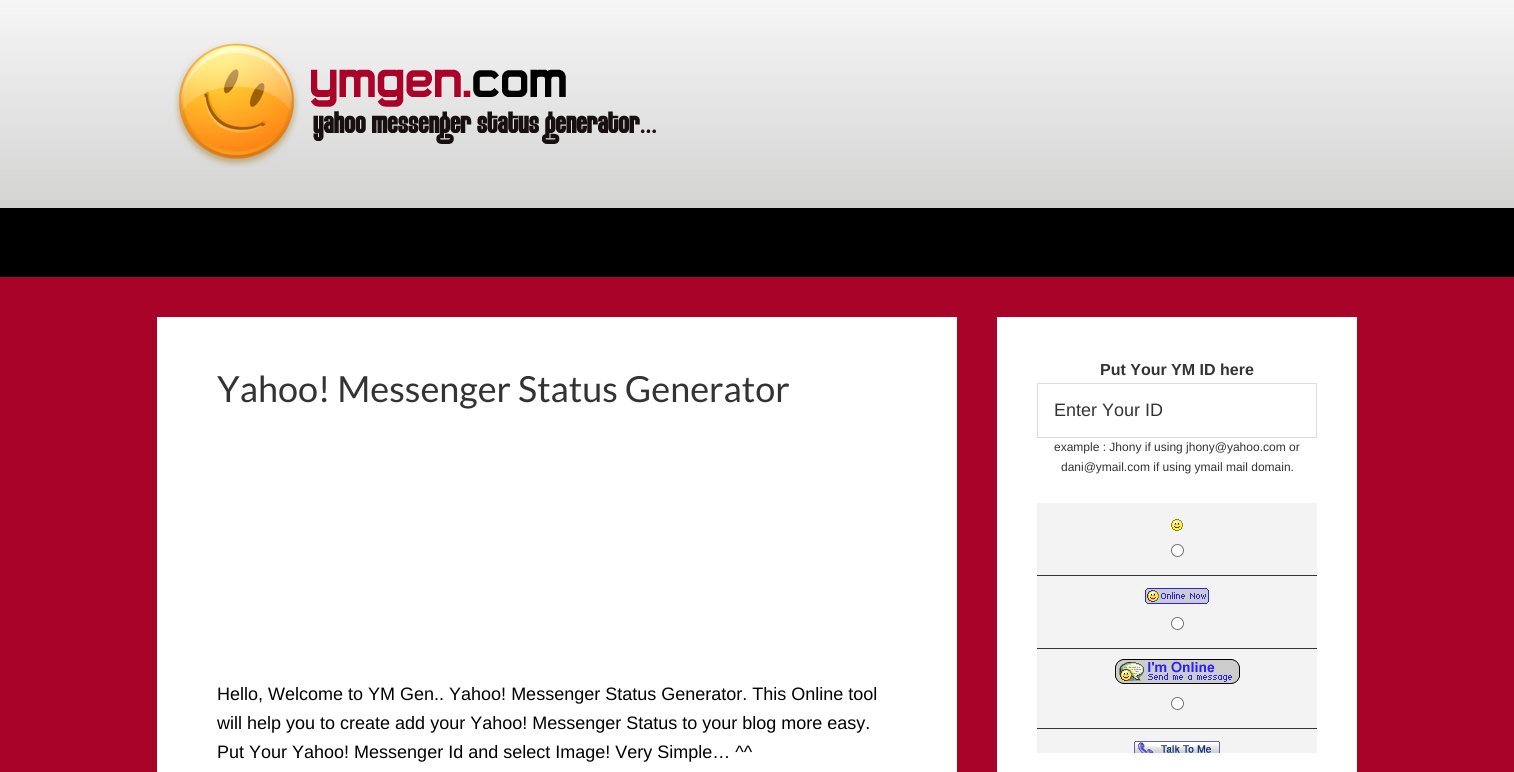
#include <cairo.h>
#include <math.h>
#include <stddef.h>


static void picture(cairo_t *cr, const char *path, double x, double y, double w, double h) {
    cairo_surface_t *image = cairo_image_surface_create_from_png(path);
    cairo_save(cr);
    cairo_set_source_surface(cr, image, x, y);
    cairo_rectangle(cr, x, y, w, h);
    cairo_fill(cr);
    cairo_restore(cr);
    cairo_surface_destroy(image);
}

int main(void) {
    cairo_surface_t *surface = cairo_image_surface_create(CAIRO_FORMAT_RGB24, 1514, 772);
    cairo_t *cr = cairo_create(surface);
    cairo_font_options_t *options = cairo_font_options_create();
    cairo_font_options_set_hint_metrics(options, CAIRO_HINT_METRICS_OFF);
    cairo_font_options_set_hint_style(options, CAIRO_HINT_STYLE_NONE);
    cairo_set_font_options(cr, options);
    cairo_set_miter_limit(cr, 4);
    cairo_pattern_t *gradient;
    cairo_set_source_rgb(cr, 0.663, 0.012, 0.161);
    cairo_paint(cr);
    gradient = cairo_pattern_create_linear(757, 0, 757, 208);
    cairo_pattern_add_color_stop_rgba(gradient, 0, 0.969, 0.965, 0.969, 1);
    cairo_pattern_add_color_stop_rgba(gradient, 1, 0.827, 0.827, 0.824, 1);
    cairo_set_source(cr, gradient);
    cairo_pattern_destroy(gradient);
    cairo_rectangle(cr, 0, 0, 1514, 208);
    cairo_fill(cr);
    picture(cr, "img1.png", 173, 41, 483, 127);
    cairo_set_source_rgb(cr, 0, 0, 0);
    cairo_rectangle(cr, 0, 208, 1514, 69);
    cairo_fill(cr);
    cairo_set_source_rgb(cr, 1, 1, 1);
    cairo_rectangle(cr, 157, 317, 800, 455);
    cairo_fill(cr);
    cairo_select_font_face(cr, "Lato", CAIRO_FONT_SLANT_NORMAL, CAIRO_FONT_WEIGHT_NORMAL);
    cairo_set_font_size(cr, 36);
    cairo_set_source_rgb(cr, 0.2, 0.2, 0.2);
    cairo_move_to(cr, 217, 402);
    cairo_show_text(cr, "Yahoo! Messenger Status Generator");
    cairo_select_font_face(cr, "Liberation Sans", CAIRO_FONT_SLANT_NORMAL, CAIRO_FONT_WEIGHT_NORMAL);
    cairo_set_font_size(cr, 18);
    cairo_set_source_rgb(cr, 0, 0, 0);
    cairo_move_to(cr, 217, 700);
    cairo_show_text(cr, "Hello, Welcome to YM Gen.. Yahoo! Messenger Status Generator. This Online tool");
    cairo_move_to(cr, 217, 729);
    cairo_show_text(cr, "will help you to create add your Yahoo! Messenger Status to your blog more easy.");
    cairo_move_to(cr, 217, 758);
    cairo_show_text(cr, "Put Your Yahoo! Messenger Id and select Image! Very Simple… ^^");
    cairo_set_source_rgb(cr, 1, 1, 1);
    cairo_rectangle(cr, 997, 317, 360, 455);
    cairo_fill(cr);
    cairo_select_font_face(cr, "Liberation Sans", CAIRO_FONT_SLANT_NORMAL, CAIRO_FONT_WEIGHT_BOLD);
    cairo_set_font_size(cr, 16);
    cairo_set_source_rgb(cr, 0.2, 0.2, 0.2);
    cairo_move_to(cr, 1100, 375);
    cairo_show_text(cr, "Put Your YM ID here");
    cairo_rectangle(cr, 1037.5, 383.5, 279, 54);
    cairo_set_source_rgb(cr, 0.867, 0.867, 0.867);
    cairo_set_line_width(cr, 1);
    cairo_stroke(cr);
    cairo_select_font_face(cr, "Liberation Sans", CAIRO_FONT_SLANT_NORMAL, CAIRO_FONT_WEIGHT_NORMAL);
    cairo_set_font_size(cr, 18);
    cairo_set_source_rgb(cr, 0.2, 0.2, 0.2);
    cairo_move_to(cr, 1054, 416);
    cairo_show_text(cr, "Enter Your ID");
    cairo_set_font_size(cr, 12);
    cairo_move_to(cr, 1054, 451);
    cairo_show_text(cr, "example : Jhony if using jhony@yahoo.com or");
    cairo_move_to(cr, 1061, 471);
    cairo_show_text(cr, "dani@ymail.com if using ymail mail domain.");
    cairo_set_source_rgb(cr, 0.953, 0.953, 0.953);
    cairo_rectangle(cr, 1037, 503, 280, 72);
    cairo_fill(cr);
    cairo_set_source_rgb(cr, 0.2, 0.2, 0.2);
    cairo_rectangle(cr, 1037, 575, 280, 1);
    cairo_fill(cr);
    picture(cr, "img2.png", 1171, 519, 12, 12);
    cairo_set_source_rgb(cr, 1, 1, 1);
    cairo_arc(cr, 1177.5, 550.5, 6, 0, 2 * M_PI);
    cairo_fill_preserve(cr);
    cairo_set_source_rgb(cr, 0.463, 0.463, 0.463);
    cairo_stroke(cr);
    cairo_set_source_rgb(cr, 0.953, 0.953, 0.953);
    cairo_rectangle(cr, 1037, 576, 280, 72);
    cairo_fill(cr);
    cairo_set_source_rgb(cr, 0.2, 0.2, 0.2);
    cairo_rectangle(cr, 1037, 648, 280, 1);
    cairo_fill(cr);
    picture(cr, "img3.png", 1145, 588, 64, 16);
    cairo_set_source_rgb(cr, 1, 1, 1);
    cairo_arc(cr, 1177.5, 623.5, 6, 0, 2 * M_PI);
    cairo_fill_preserve(cr);
    cairo_set_source_rgb(cr, 0.463, 0.463, 0.463);
    cairo_stroke(cr);
    cairo_set_source_rgb(cr, 0.953, 0.953, 0.953);
    cairo_rectangle(cr, 1037, 649, 280, 79);
    cairo_fill(cr);
    cairo_set_source_rgb(cr, 0.2, 0.2, 0.2);
    cairo_rectangle(cr, 1037, 728, 280, 1);
    cairo_fill(cr);
    picture(cr, "img4.png", 1115, 659, 125, 25);
    cairo_set_source_rgb(cr, 1, 1, 1);
    cairo_arc(cr, 1177.5, 703.5, 6, 0, 2 * M_PI);
    cairo_fill_preserve(cr);
    cairo_set_source_rgb(cr, 0.463, 0.463, 0.463);
    cairo_stroke(cr);
    cairo_set_source_rgb(cr, 0.953, 0.953, 0.953);
    cairo_rectangle(cr, 1037, 729, 280, 24);
    cairo_fill(cr);
    picture(cr, "img5.png", 1134, 741, 86, 12);
    cairo_surface_write_to_png(surface, "page.png");
    cairo_font_options_destroy(options);
    cairo_destroy(cr);
    cairo_surface_destroy(surface);
    return 0;
}
